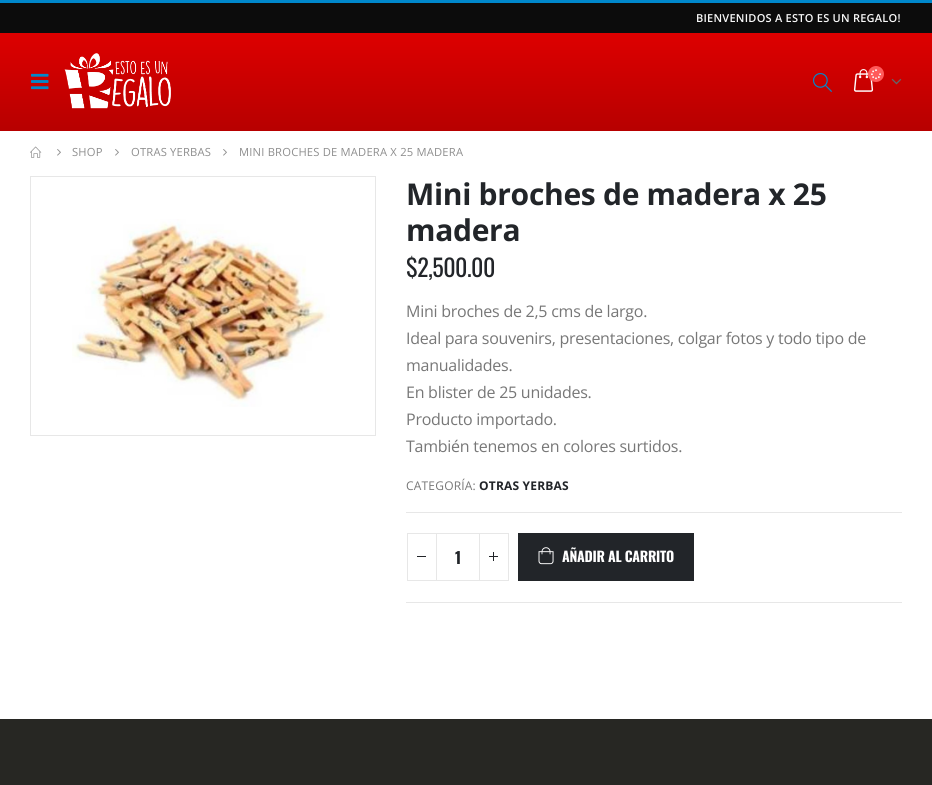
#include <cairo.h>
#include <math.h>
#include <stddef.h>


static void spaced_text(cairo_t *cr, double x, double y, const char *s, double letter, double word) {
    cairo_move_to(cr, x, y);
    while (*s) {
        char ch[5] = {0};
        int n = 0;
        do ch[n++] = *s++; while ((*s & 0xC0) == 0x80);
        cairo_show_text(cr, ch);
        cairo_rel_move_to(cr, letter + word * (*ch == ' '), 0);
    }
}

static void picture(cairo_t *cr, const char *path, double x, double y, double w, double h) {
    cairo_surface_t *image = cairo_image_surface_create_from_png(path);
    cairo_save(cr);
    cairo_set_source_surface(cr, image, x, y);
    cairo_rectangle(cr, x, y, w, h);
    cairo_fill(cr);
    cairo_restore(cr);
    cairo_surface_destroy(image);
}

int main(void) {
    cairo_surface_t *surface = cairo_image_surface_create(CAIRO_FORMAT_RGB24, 932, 785);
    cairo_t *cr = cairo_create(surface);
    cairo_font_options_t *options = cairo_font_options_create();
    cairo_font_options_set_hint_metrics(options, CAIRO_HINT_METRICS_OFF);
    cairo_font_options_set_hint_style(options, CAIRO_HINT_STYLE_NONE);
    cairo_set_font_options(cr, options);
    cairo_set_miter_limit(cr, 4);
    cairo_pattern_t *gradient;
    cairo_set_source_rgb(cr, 1, 1, 1);
    cairo_paint(cr);
    cairo_set_source_rgb(cr, 0, 0.533, 0.8);
    cairo_rectangle(cr, 0, 0, 932, 3);
    cairo_fill(cr);
    cairo_set_source_rgb(cr, 0.047, 0.047, 0.047);
    cairo_rectangle(cr, 0, 3, 932, 30);
    cairo_fill(cr);
    cairo_select_font_face(cr, "Open Sans SemiBold", CAIRO_FONT_SLANT_NORMAL, CAIRO_FONT_WEIGHT_NORMAL);
    cairo_set_font_size(cr, 11);
    cairo_set_source_rgb(cr, 0.976, 0.976, 0.976);
    spaced_text(cr, 696, 22, "BIENVENIDOS A ESTO ES UN REGALO!", 0.25, 0);
    gradient = cairo_pattern_create_linear(466, 33, 466, 131);
    cairo_pattern_add_color_stop_rgba(gradient, 0, 0.867, 0, 0, 1);
    cairo_pattern_add_color_stop_rgba(gradient, 1, 0.718, 0, 0, 1);
    cairo_set_source(cr, gradient);
    cairo_pattern_destroy(gradient);
    cairo_rectangle(cr, 0, 33, 932, 98);
    cairo_fill(cr);
    picture(cr, "img1.png", 31, 73, 18, 17);
    picture(cr, "img2.png", 64, 53, 107, 56);
    picture(cr, "img3.png", 812, 73, 20, 19);
    picture(cr, "img4.png", 853, 69, 21, 23);
    cairo_set_source_rgb(cr, 1, 0.357, 0.357);
    cairo_arc(cr, 876, 74, 8, 0, 2 * M_PI);
    cairo_fill(cr);
    picture(cr, "img5.png", 871, 69, 10, 11);
    picture(cr, "img6.png", 891, 78, 11, 7);
    picture(cr, "img7.png", 30, 146, 12, 12);
    picture(cr, "img8.png", 57, 149, 4, 7);
    cairo_select_font_face(cr, "Open Sans", CAIRO_FONT_SLANT_NORMAL, CAIRO_FONT_WEIGHT_NORMAL);
    cairo_set_font_size(cr, 11.2);
    cairo_set_source_rgb(cr, 0.557, 0.557, 0.557);
    spaced_text(cr, 72, 156, "SHOP", 0.2, 0);
    picture(cr, "img8.png", 115, 149, 4, 7);
    spaced_text(cr, 131, 156, "OTRAS YERBAS", 0.2, 0);
    picture(cr, "img8.png", 223, 149, 4, 7);
    spaced_text(cr, 239, 156, "MINI BROCHES DE MADERA X 25 MADERA", 0.2, 0);
    cairo_rectangle(cr, 30.5, 176.5, 345, 259);
    cairo_set_source_rgb(cr, 0.906, 0.906, 0.906);
    cairo_set_line_width(cr, 1);
    cairo_stroke(cr);
    picture(cr, "img9.png", 72, 219, 258, 188);
    cairo_select_font_face(cr, "Open Sans", CAIRO_FONT_SLANT_NORMAL, CAIRO_FONT_WEIGHT_BOLD);
    cairo_set_font_size(cr, 30);
    cairo_set_source_rgb(cr, 0.133, 0.145, 0.161);
    spaced_text(cr, 406, 205, "Mini broches de madera x 25", -0.3, 0);
    spaced_text(cr, 406, 241, "madera", -0.3, 0);
    cairo_select_font_face(cr, "Oswald", CAIRO_FONT_SLANT_NORMAL, CAIRO_FONT_WEIGHT_NORMAL);
    cairo_set_font_size(cr, 24);
    spaced_text(cr, 406, 277, "$2,500.00", -0.5, 0);
    cairo_select_font_face(cr, "Open Sans", CAIRO_FONT_SLANT_NORMAL, CAIRO_FONT_WEIGHT_NORMAL);
    cairo_set_font_size(cr, 16);
    cairo_set_source_rgb(cr, 0.467, 0.467, 0.467);
    spaced_text(cr, 406, 317, "Mini broches de 2,5 cms de largo.", -0.25, 0);
    spaced_text(cr, 406, 344, "Ideal para souvenirs, presentaciones, colgar fotos y todo tipo de", -0.25, 0);
    spaced_text(cr, 406, 371, "manualidades.", -0.25, 0);
    spaced_text(cr, 406, 398, "En blister de 25 unidades.", -0.25, 0);
    spaced_text(cr, 406, 425, "Producto importado.", -0.25, 0);
    spaced_text(cr, 406, 452, "También tenemos en colores surtidos.", -0.25, 0);
    cairo_set_font_size(cr, 12);
    spaced_text(cr, 406, 490, "CATEGORÍA:", 0.2, 0);
    cairo_select_font_face(cr, "Open Sans", CAIRO_FONT_SLANT_NORMAL, CAIRO_FONT_WEIGHT_BOLD);
    cairo_set_source_rgb(cr, 0.133, 0.145, 0.161);
    spaced_text(cr, 479, 490, "OTRAS YERBAS", 0.2, 0);
    cairo_set_source_rgb(cr, 0.906, 0.906, 0.906);
    cairo_rectangle(cr, 406, 512, 496, 1);
    cairo_fill(cr);
    cairo_rectangle(cr, 406, 602, 496, 1);
    cairo_fill(cr);
    cairo_rectangle(cr, 436, 533, 44, 1);
    cairo_fill(cr);
    cairo_rectangle(cr, 436, 580, 44, 1);
    cairo_fill(cr);
    cairo_rectangle(cr, 407.5, 533.5, 29, 47);
    cairo_stroke(cr);
    cairo_set_source_rgb(cr, 0.133, 0.145, 0.161);
    cairo_rectangle(cr, 417, 556, 9, 1);
    cairo_fill(cr);
    cairo_select_font_face(cr, "Oswald", CAIRO_FONT_SLANT_NORMAL, CAIRO_FONT_WEIGHT_BOLD);
    cairo_set_font_size(cr, 16);
    cairo_move_to(cr, 455, 564);
    cairo_show_text(cr, "1");
    cairo_rectangle(cr, 479.5, 533.5, 29, 47);
    cairo_set_source_rgb(cr, 0.906, 0.906, 0.906);
    cairo_stroke(cr);
    cairo_set_source_rgb(cr, 0.133, 0.145, 0.161);
    cairo_rectangle(cr, 489, 556, 9, 1);
    cairo_fill(cr);
    cairo_rectangle(cr, 493, 552, 1, 9);
    cairo_fill(cr);
    cairo_rectangle(cr, 518, 533, 176, 48);
    cairo_fill(cr);
    picture(cr, "img10.png", 538, 547, 16, 18);
    cairo_set_font_size(cr, 14);
    cairo_set_source_rgb(cr, 1, 1, 1);
    spaced_text(cr, 562, 562, "AÑADIR AL CARRITO", -0.25, 0);
    cairo_set_source_rgb(cr, 0.153, 0.153, 0.137);
    cairo_rectangle(cr, 0, 719, 932, 66);
    cairo_fill(cr);
    cairo_surface_write_to_png(surface, "page.png");
    cairo_font_options_destroy(options);
    cairo_destroy(cr);
    cairo_surface_destroy(surface);
    return 0;
}
